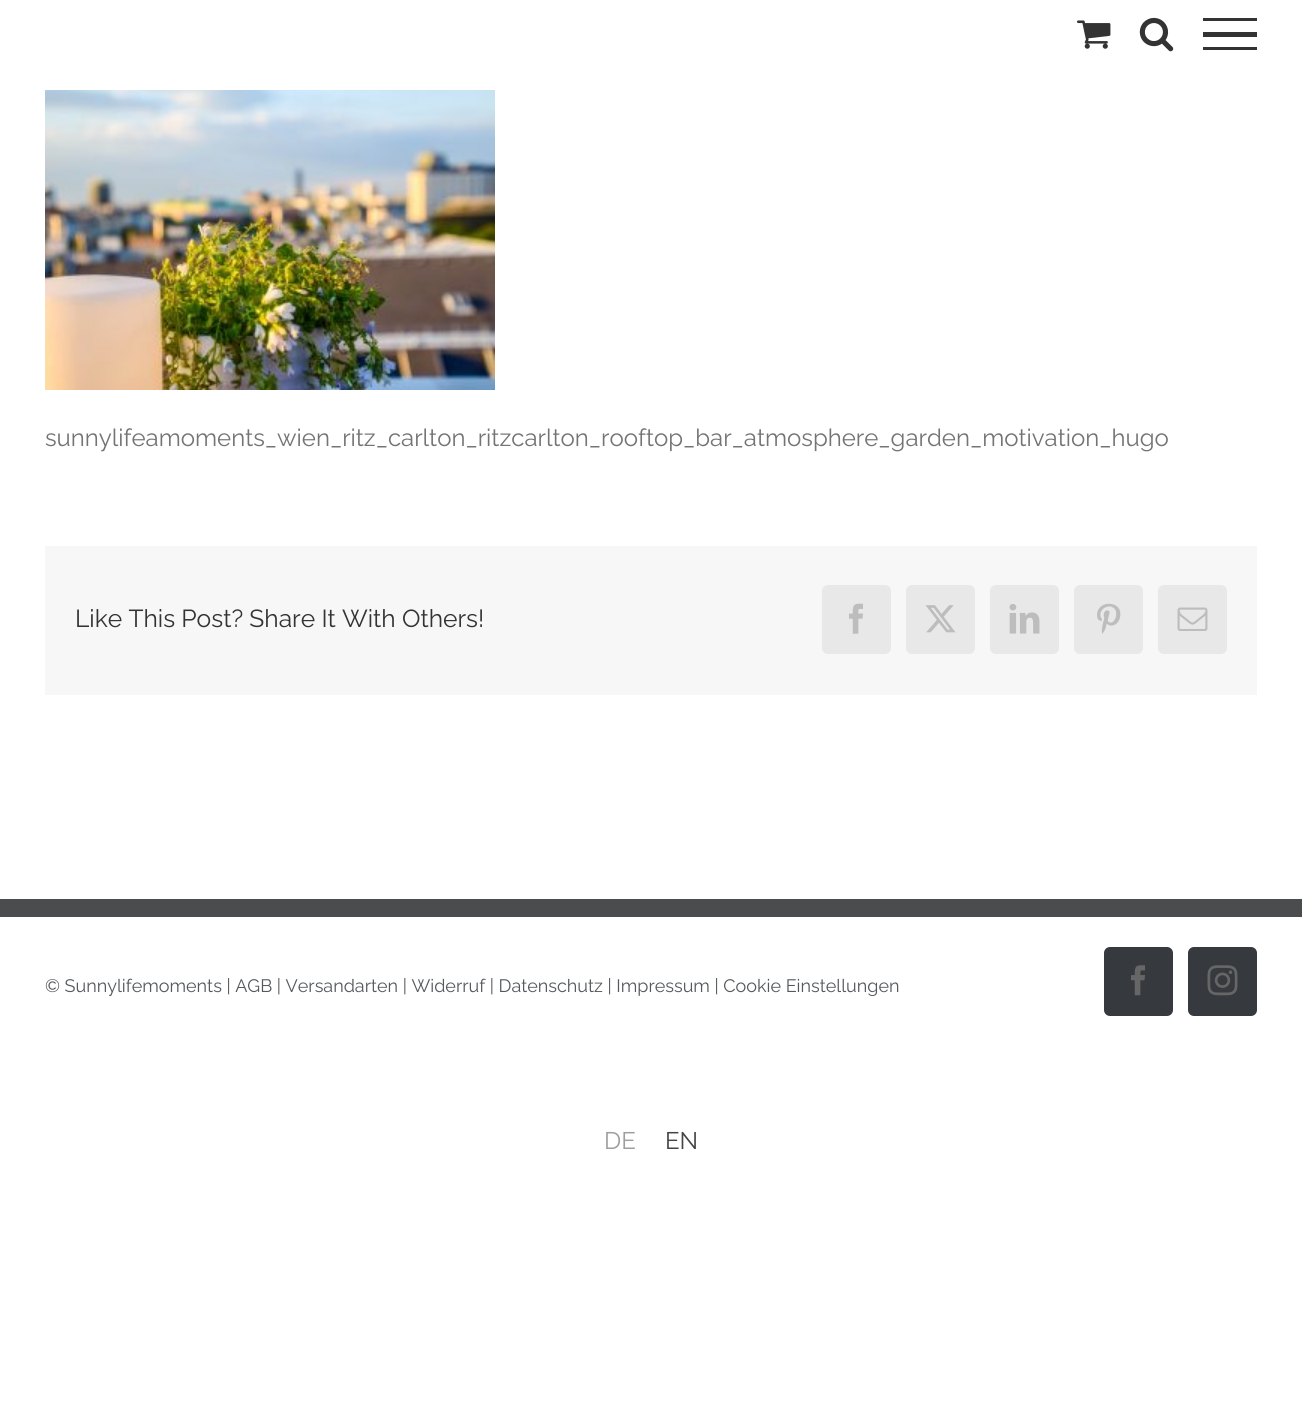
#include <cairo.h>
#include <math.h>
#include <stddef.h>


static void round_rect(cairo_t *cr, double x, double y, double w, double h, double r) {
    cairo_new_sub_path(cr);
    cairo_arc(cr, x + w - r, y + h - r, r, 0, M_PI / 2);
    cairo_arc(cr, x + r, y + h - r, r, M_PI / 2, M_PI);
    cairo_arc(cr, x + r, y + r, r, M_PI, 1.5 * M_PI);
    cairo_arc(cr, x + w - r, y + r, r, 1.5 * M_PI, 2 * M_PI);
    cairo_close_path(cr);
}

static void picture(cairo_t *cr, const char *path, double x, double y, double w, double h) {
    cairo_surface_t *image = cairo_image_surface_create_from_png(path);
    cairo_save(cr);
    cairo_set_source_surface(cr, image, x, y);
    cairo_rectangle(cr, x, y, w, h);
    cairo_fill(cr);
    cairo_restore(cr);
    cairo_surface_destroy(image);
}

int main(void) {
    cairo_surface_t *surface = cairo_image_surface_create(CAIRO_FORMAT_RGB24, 1302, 1414);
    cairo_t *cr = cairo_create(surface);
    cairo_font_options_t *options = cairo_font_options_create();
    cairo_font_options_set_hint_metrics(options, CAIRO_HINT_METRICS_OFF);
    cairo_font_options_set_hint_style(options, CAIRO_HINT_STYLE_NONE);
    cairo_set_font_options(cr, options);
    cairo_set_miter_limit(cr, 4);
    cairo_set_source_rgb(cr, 1, 1, 1);
    cairo_paint(cr);
    picture(cr, "img1.png", 1077, 20, 34, 29);
    picture(cr, "img2.png", 1139, 17, 35, 35);
    cairo_set_source_rgb(cr, 0.2, 0.2, 0.2);
    cairo_rectangle(cr, 1203, 18, 54, 3);
    cairo_fill(cr);
    cairo_rectangle(cr, 1203, 32, 54, 5);
    cairo_fill(cr);
    cairo_rectangle(cr, 1203, 47, 54, 3);
    cairo_fill(cr);
    picture(cr, "img3.png", 45, 90, 450, 300);
    cairo_select_font_face(cr, "Raleway", CAIRO_FONT_SLANT_NORMAL, CAIRO_FONT_WEIGHT_NORMAL);
    cairo_set_font_size(cr, 24);
    cairo_set_source_rgb(cr, 0.455, 0.455, 0.455);
    cairo_move_to(cr, 45, 446);
    cairo_show_text(cr, "sunnylifeamoments_wien_ritz_carlton_ritzcarlton_rooftop_bar_atmosphere_garden_motivation_hugo");
    cairo_set_source_rgb(cr, 0.965, 0.965, 0.965);
    cairo_rectangle(cr, 45, 546, 1212, 149);
    cairo_fill(cr);
    cairo_set_font_size(cr, 24.6);
    cairo_set_source_rgb(cr, 0.2, 0.2, 0.2);
    cairo_move_to(cr, 75, 627);
    cairo_show_text(cr, "Like This Post? Share It With Others!");
    cairo_set_source_rgb(cr, 0.91, 0.91, 0.91);
    round_rect(cr, 823, 586, 67, 67, 5);
    cairo_fill_preserve(cr);
    cairo_stroke(cr);
    picture(cr, "img4.png", 849, 603, 14, 31);
    round_rect(cr, 907, 586, 67, 67, 5);
    cairo_fill_preserve(cr);
    cairo_stroke(cr);
    picture(cr, "img5.png", 925, 605, 31, 28);
    round_rect(cr, 991, 586, 67, 67, 5);
    cairo_fill_preserve(cr);
    cairo_stroke(cr);
    picture(cr, "img6.png", 1009, 604, 31, 30);
    round_rect(cr, 1075, 586, 67, 67, 5);
    cairo_fill_preserve(cr);
    cairo_stroke(cr);
    picture(cr, "img7.png", 1097, 603, 24, 31);
    round_rect(cr, 1159, 586, 67, 67, 5);
    cairo_fill_preserve(cr);
    cairo_stroke(cr);
    picture(cr, "img8.png", 1177, 607, 31, 24);
    cairo_set_source_rgb(cr, 0.294, 0.298, 0.302);
    cairo_rectangle(cr, 0, 899, 1302, 18);
    cairo_fill(cr);
    cairo_set_font_size(cr, 18);
    cairo_set_source_rgb(cr, 0.333, 0.345, 0.361);
    cairo_move_to(cr, 45, 992);
    cairo_show_text(cr, "© Sunnylifemoments | AGB | Versandarten | Widerruf | Datenschutz | Impressum | Cookie Einstellungen");
    cairo_set_source_rgb(cr, 0.212, 0.224, 0.239);
    round_rect(cr, 1105, 948, 67, 67, 5);
    cairo_fill_preserve(cr);
    cairo_stroke(cr);
    picture(cr, "img9.png", 1131, 965, 14, 31);
    round_rect(cr, 1189, 948, 67, 67, 5);
    cairo_fill_preserve(cr);
    cairo_stroke(cr);
    picture(cr, "img10.png", 1207, 965, 31, 31);
    cairo_set_font_size(cr, 24);
    cairo_set_source_rgb(cr, 0.62, 0.62, 0.62);
    cairo_move_to(cr, 604, 1149);
    cairo_show_text(cr, "DE");
    cairo_set_source_rgb(cr, 0.267, 0.267, 0.267);
    cairo_move_to(cr, 665, 1149);
    cairo_show_text(cr, "EN");
    cairo_surface_write_to_png(surface, "page.png");
    cairo_font_options_destroy(options);
    cairo_destroy(cr);
    cairo_surface_destroy(surface);
    return 0;
}
